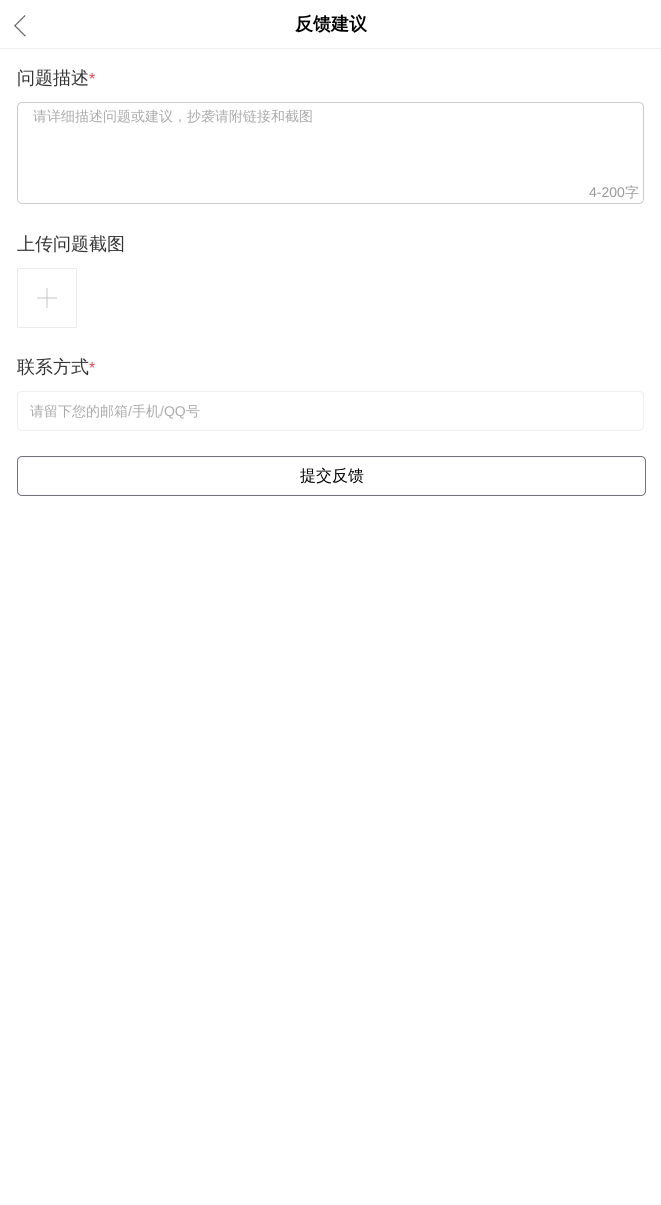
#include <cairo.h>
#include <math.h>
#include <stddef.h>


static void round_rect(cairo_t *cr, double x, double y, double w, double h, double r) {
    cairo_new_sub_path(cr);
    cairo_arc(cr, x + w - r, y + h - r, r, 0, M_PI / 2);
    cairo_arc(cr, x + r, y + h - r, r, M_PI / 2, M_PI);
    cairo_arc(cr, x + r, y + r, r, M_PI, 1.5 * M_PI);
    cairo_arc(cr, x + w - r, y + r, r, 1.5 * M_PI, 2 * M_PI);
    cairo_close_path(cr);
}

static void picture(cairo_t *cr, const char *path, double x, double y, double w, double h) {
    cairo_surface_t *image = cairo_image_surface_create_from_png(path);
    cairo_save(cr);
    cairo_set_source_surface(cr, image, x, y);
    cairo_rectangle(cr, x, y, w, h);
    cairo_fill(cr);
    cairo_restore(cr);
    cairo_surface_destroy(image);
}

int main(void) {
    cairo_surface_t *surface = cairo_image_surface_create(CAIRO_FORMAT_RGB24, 661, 1205);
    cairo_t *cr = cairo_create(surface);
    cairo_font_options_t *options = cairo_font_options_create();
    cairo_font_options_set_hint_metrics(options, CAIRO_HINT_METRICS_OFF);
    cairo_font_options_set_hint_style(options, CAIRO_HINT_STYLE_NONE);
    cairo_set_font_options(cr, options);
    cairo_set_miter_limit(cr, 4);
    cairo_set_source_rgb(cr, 1, 1, 1);
    cairo_paint(cr);
    cairo_set_source_rgb(cr, 0.933, 0.933, 0.933);
    cairo_rectangle(cr, 0, 48, 661, 1);
    cairo_fill(cr);
    picture(cr, "img1.png", 14, 15, 12, 22);
    cairo_select_font_face(cr, "WenQuanYi Zen Hei", CAIRO_FONT_SLANT_NORMAL, CAIRO_FONT_WEIGHT_BOLD);
    cairo_set_font_size(cr, 18);
    cairo_set_source_rgb(cr, 0, 0, 0);
    cairo_move_to(cr, 295, 30);
    cairo_show_text(cr, "反馈建议");
    cairo_select_font_face(cr, "WenQuanYi Zen Hei Medium", CAIRO_FONT_SLANT_NORMAL, CAIRO_FONT_WEIGHT_NORMAL);
    cairo_set_source_rgb(cr, 0.2, 0.2, 0.2);
    cairo_move_to(cr, 17, 84);
    cairo_show_text(cr, "问题描述");
    cairo_select_font_face(cr, "Liberation Sans", CAIRO_FONT_SLANT_NORMAL, CAIRO_FONT_WEIGHT_NORMAL);
    cairo_set_font_size(cr, 16);
    cairo_set_source_rgb(cr, 0.925, 0.263, 0.271);
    cairo_move_to(cr, 89, 84);
    cairo_show_text(cr, "*");
    round_rect(cr, 17.5, 102.5, 626, 101, 4.5);
    cairo_set_source_rgb(cr, 0.8, 0.8, 0.8);
    cairo_set_line_width(cr, 1);
    cairo_stroke(cr);
    cairo_select_font_face(cr, "WenQuanYi Zen Hei Medium", CAIRO_FONT_SLANT_NORMAL, CAIRO_FONT_WEIGHT_NORMAL);
    cairo_set_font_size(cr, 14);
    cairo_set_source_rgb(cr, 0.667, 0.667, 0.667);
    cairo_move_to(cr, 33, 121);
    cairo_show_text(cr, "请详细描述问题或建议，抄袭请附链接和截图");
    cairo_select_font_face(cr, "Liberation Sans", CAIRO_FONT_SLANT_NORMAL, CAIRO_FONT_WEIGHT_NORMAL);
    cairo_set_source_rgb(cr, 0.6, 0.6, 0.6);
    cairo_move_to(cr, 589, 197);
    cairo_show_text(cr, "4-200");
    cairo_select_font_face(cr, "WenQuanYi Zen Hei Medium", CAIRO_FONT_SLANT_NORMAL, CAIRO_FONT_WEIGHT_NORMAL);
    cairo_move_to(cr, 625, 197);
    cairo_show_text(cr, "字");
    cairo_set_font_size(cr, 18);
    cairo_set_source_rgb(cr, 0.2, 0.2, 0.2);
    cairo_move_to(cr, 17, 250);
    cairo_show_text(cr, "上传问题截图");
    picture(cr, "img2.png", 17, 268, 60, 60);
    cairo_move_to(cr, 17, 373);
    cairo_show_text(cr, "联系方式");
    cairo_select_font_face(cr, "Liberation Sans", CAIRO_FONT_SLANT_NORMAL, CAIRO_FONT_WEIGHT_NORMAL);
    cairo_set_font_size(cr, 16);
    cairo_set_source_rgb(cr, 0.925, 0.263, 0.271);
    cairo_move_to(cr, 89, 373);
    cairo_show_text(cr, "*");
    round_rect(cr, 17.5, 391.5, 626, 39, 4.5);
    cairo_set_source_rgb(cr, 0.933, 0.933, 0.933);
    cairo_stroke(cr);
    cairo_select_font_face(cr, "WenQuanYi Zen Hei Medium", CAIRO_FONT_SLANT_NORMAL, CAIRO_FONT_WEIGHT_NORMAL);
    cairo_set_font_size(cr, 14);
    cairo_set_source_rgb(cr, 0.667, 0.667, 0.667);
    cairo_move_to(cr, 30, 416);
    cairo_show_text(cr, "请留下您的邮箱");
    cairo_select_font_face(cr, "Liberation Sans", CAIRO_FONT_SLANT_NORMAL, CAIRO_FONT_WEIGHT_NORMAL);
    cairo_move_to(cr, 128, 416);
    cairo_show_text(cr, "/");
    cairo_select_font_face(cr, "WenQuanYi Zen Hei Medium", CAIRO_FONT_SLANT_NORMAL, CAIRO_FONT_WEIGHT_NORMAL);
    cairo_move_to(cr, 132, 416);
    cairo_show_text(cr, "手机");
    cairo_select_font_face(cr, "Liberation Sans", CAIRO_FONT_SLANT_NORMAL, CAIRO_FONT_WEIGHT_NORMAL);
    cairo_move_to(cr, 160, 416);
    cairo_show_text(cr, "/QQ");
    cairo_select_font_face(cr, "WenQuanYi Zen Hei Medium", CAIRO_FONT_SLANT_NORMAL, CAIRO_FONT_WEIGHT_NORMAL);
    cairo_move_to(cr, 186, 416);
    cairo_show_text(cr, "号");
    round_rect(cr, 17.5, 456.5, 628, 39, 4.5);
    cairo_set_source_rgb(cr, 0.439, 0.451, 0.475);
    cairo_stroke(cr);
    cairo_set_font_size(cr, 16);
    cairo_set_source_rgb(cr, 0, 0, 0);
    cairo_move_to(cr, 300, 481);
    cairo_show_text(cr, "提交反馈");
    cairo_surface_write_to_png(surface, "page.png");
    cairo_font_options_destroy(options);
    cairo_destroy(cr);
    cairo_surface_destroy(surface);
    return 0;
}
